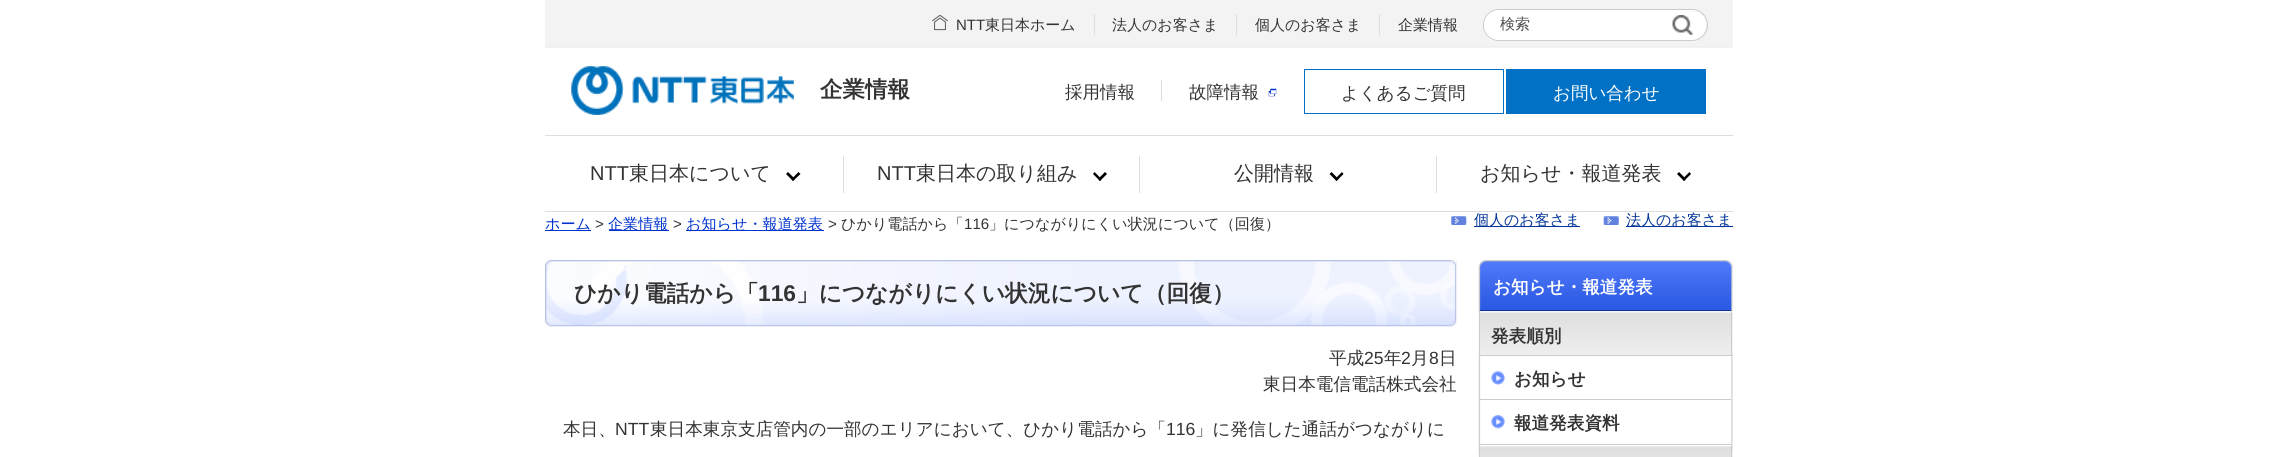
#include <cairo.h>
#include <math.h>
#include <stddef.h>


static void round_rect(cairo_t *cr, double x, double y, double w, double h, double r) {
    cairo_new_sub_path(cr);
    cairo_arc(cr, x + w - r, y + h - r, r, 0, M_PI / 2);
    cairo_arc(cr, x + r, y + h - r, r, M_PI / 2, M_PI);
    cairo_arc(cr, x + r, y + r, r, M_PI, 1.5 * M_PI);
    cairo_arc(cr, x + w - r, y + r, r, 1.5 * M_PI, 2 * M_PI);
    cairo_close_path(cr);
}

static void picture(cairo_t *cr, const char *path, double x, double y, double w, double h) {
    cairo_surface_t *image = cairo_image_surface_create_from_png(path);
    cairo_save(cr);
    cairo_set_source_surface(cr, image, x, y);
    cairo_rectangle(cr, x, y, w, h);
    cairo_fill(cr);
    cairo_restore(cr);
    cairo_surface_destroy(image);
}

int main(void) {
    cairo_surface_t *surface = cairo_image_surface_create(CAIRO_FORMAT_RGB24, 2277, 457);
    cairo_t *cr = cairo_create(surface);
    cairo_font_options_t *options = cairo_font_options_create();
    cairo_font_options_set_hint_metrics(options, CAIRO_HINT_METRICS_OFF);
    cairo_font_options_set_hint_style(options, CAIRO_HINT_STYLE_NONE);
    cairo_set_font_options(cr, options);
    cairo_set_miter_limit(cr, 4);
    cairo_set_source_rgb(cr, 1, 1, 1);
    cairo_paint(cr);
    cairo_set_source_rgb(cr, 0.953, 0.953, 0.953);
    cairo_rectangle(cr, 545, 0, 1188, 48);
    cairo_fill(cr);
    cairo_set_source_rgb(cr, 0.933, 0.933, 0.933);
    cairo_rectangle(cr, 545, 46, 1188, 1);
    cairo_fill(cr);
    picture(cr, "img1.png", 932, 14, 16, 17);
    cairo_select_font_face(cr, "Liberation Sans", CAIRO_FONT_SLANT_NORMAL, CAIRO_FONT_WEIGHT_NORMAL);
    cairo_set_font_size(cr, 15);
    cairo_set_source_rgb(cr, 0.2, 0.2, 0.2);
    cairo_move_to(cr, 956, 30);
    cairo_show_text(cr, "NTT");
    cairo_select_font_face(cr, "WenQuanYi Zen Hei Medium", CAIRO_FONT_SLANT_NORMAL, CAIRO_FONT_WEIGHT_NORMAL);
    cairo_move_to(cr, 985, 30);
    cairo_show_text(cr, "東日本ホーム");
    cairo_set_source_rgb(cr, 0.867, 0.867, 0.867);
    cairo_rectangle(cr, 1094, 14, 1, 21);
    cairo_fill(cr);
    cairo_set_source_rgb(cr, 0.2, 0.2, 0.2);
    cairo_move_to(cr, 1112, 30);
    cairo_show_text(cr, "法人のお客さま");
    cairo_set_source_rgb(cr, 0.867, 0.867, 0.867);
    cairo_rectangle(cr, 1236, 14, 1, 21);
    cairo_fill(cr);
    cairo_set_source_rgb(cr, 0.2, 0.2, 0.2);
    cairo_move_to(cr, 1255, 30);
    cairo_show_text(cr, "個人のお客さま");
    cairo_set_source_rgb(cr, 0.867, 0.867, 0.867);
    cairo_rectangle(cr, 1379, 14, 1, 21);
    cairo_fill(cr);
    cairo_set_source_rgb(cr, 0.2, 0.2, 0.2);
    cairo_move_to(cr, 1398, 30);
    cairo_show_text(cr, "企業情報");
    round_rect(cr, 1483.5, 9.5, 224, 31, 15.5);
    cairo_set_source_rgb(cr, 0.8, 0.8, 0.8);
    cairo_set_line_width(cr, 1);
    cairo_stroke(cr);
    cairo_set_source_rgb(cr, 1, 1, 1);
    round_rect(cr, 1484, 10, 222, 30, 15);
    cairo_fill(cr);
    cairo_set_source_rgb(cr, 0.31, 0.31, 0.31);
    cairo_move_to(cr, 1500, 29);
    cairo_show_text(cr, "検索");
    picture(cr, "img2.png", 1672, 15, 21, 20);
    cairo_set_font_size(cr, 17.5);
    cairo_set_source_rgb(cr, 0.2, 0.2, 0.2);
    cairo_move_to(cr, 1065, 98);
    cairo_show_text(cr, "採用情報");
    cairo_set_source_rgb(cr, 0.867, 0.867, 0.867);
    cairo_rectangle(cr, 1161, 80, 1, 21);
    cairo_fill(cr);
    cairo_set_source_rgb(cr, 0.2, 0.2, 0.2);
    cairo_move_to(cr, 1189, 98);
    cairo_show_text(cr, "故障情報");
    picture(cr, "img3.png", 1268, 88, 9, 9);
    cairo_rectangle(cr, 1304.5, 69.5, 199, 44);
    cairo_set_source_rgb(cr, 0, 0.443, 0.773);
    cairo_stroke(cr);
    cairo_set_source_rgb(cr, 0.2, 0.2, 0.2);
    cairo_move_to(cr, 1341, 99);
    cairo_show_text(cr, "よくあるご質問");
    cairo_set_source_rgb(cr, 0, 0.443, 0.773);
    cairo_rectangle(cr, 1506, 69, 200, 45);
    cairo_fill(cr);
    cairo_set_source_rgb(cr, 1, 1, 1);
    cairo_move_to(cr, 1553, 99);
    cairo_show_text(cr, "お問い合わせ");
    cairo_set_source_rgb(cr, 0.867, 0.867, 0.867);
    cairo_rectangle(cr, 545, 135, 1188, 1);
    cairo_fill(cr);
    cairo_rectangle(cr, 545, 211, 1188, 1);
    cairo_fill(cr);
    cairo_select_font_face(cr, "Liberation Sans", CAIRO_FONT_SLANT_NORMAL, CAIRO_FONT_WEIGHT_NORMAL);
    cairo_set_font_size(cr, 20);
    cairo_set_source_rgb(cr, 0.2, 0.2, 0.2);
    cairo_move_to(cr, 590, 180);
    cairo_show_text(cr, "NTT");
    cairo_select_font_face(cr, "WenQuanYi Zen Hei Medium", CAIRO_FONT_SLANT_NORMAL, CAIRO_FONT_WEIGHT_NORMAL);
    cairo_move_to(cr, 629, 180);
    cairo_show_text(cr, "東日本について");
    cairo_set_source_rgb(cr, 0, 0, 0);
    cairo_new_path(cr);
    cairo_move_to(cr, 798.5, 172);
    cairo_line_to(cr, 800.5, 174);
    cairo_line_to(cr, 793, 181);
    cairo_line_to(cr, 791.5, 179);
    cairo_close_path(cr);
    cairo_fill(cr);
    cairo_new_path(cr);
    cairo_move_to(cr, 788, 172);
    cairo_line_to(cr, 795, 179);
    cairo_line_to(cr, 793, 181);
    cairo_line_to(cr, 786, 174);
    cairo_close_path(cr);
    cairo_fill(cr);
    cairo_set_source_rgb(cr, 0.867, 0.867, 0.867);
    cairo_rectangle(cr, 843, 156, 1, 37);
    cairo_fill(cr);
    cairo_select_font_face(cr, "Liberation Sans", CAIRO_FONT_SLANT_NORMAL, CAIRO_FONT_WEIGHT_NORMAL);
    cairo_set_source_rgb(cr, 0.2, 0.2, 0.2);
    cairo_move_to(cr, 877, 180);
    cairo_show_text(cr, "NTT");
    cairo_select_font_face(cr, "WenQuanYi Zen Hei Medium", CAIRO_FONT_SLANT_NORMAL, CAIRO_FONT_WEIGHT_NORMAL);
    cairo_move_to(cr, 916, 180);
    cairo_show_text(cr, "東日本の取り組み");
    cairo_set_source_rgb(cr, 0, 0, 0);
    cairo_new_path(cr);
    cairo_move_to(cr, 1105, 172);
    cairo_line_to(cr, 1107, 174);
    cairo_line_to(cr, 1100, 181);
    cairo_line_to(cr, 1098, 179);
    cairo_close_path(cr);
    cairo_fill(cr);
    cairo_new_path(cr);
    cairo_move_to(cr, 1094.5, 172);
    cairo_line_to(cr, 1101.5, 179);
    cairo_line_to(cr, 1100, 181);
    cairo_line_to(cr, 1093, 174);
    cairo_close_path(cr);
    cairo_fill(cr);
    cairo_set_source_rgb(cr, 0.867, 0.867, 0.867);
    cairo_rectangle(cr, 1139, 156, 1, 37);
    cairo_fill(cr);
    cairo_set_source_rgb(cr, 0.2, 0.2, 0.2);
    cairo_move_to(cr, 1234, 180);
    cairo_show_text(cr, "公開情報");
    cairo_set_source_rgb(cr, 0, 0, 0);
    cairo_new_path(cr);
    cairo_move_to(cr, 1342, 172);
    cairo_line_to(cr, 1343.5, 174);
    cairo_line_to(cr, 1336.5, 181);
    cairo_line_to(cr, 1335, 179);
    cairo_close_path(cr);
    cairo_fill(cr);
    cairo_new_path(cr);
    cairo_move_to(cr, 1331.5, 172);
    cairo_line_to(cr, 1338.5, 179);
    cairo_line_to(cr, 1336.5, 181);
    cairo_line_to(cr, 1329.5, 174);
    cairo_close_path(cr);
    cairo_fill(cr);
    cairo_set_source_rgb(cr, 0.867, 0.867, 0.867);
    cairo_rectangle(cr, 1436, 156, 1, 37);
    cairo_fill(cr);
    cairo_set_source_rgb(cr, 0.2, 0.2, 0.2);
    cairo_move_to(cr, 1480, 180);
    cairo_show_text(cr, "お知らせ・報道発表");
    cairo_set_source_rgb(cr, 0, 0, 0);
    cairo_new_path(cr);
    cairo_move_to(cr, 1689.5, 172);
    cairo_line_to(cr, 1691, 174);
    cairo_line_to(cr, 1684, 181);
    cairo_line_to(cr, 1682.5, 179);
    cairo_close_path(cr);
    cairo_fill(cr);
    cairo_new_path(cr);
    cairo_move_to(cr, 1679, 172);
    cairo_line_to(cr, 1686, 179);
    cairo_line_to(cr, 1684, 181);
    cairo_line_to(cr, 1677, 174);
    cairo_close_path(cr);
    cairo_fill(cr);
    picture(cr, "img4.png", 571, 66, 223, 49);
    cairo_select_font_face(cr, "WenQuanYi Zen Hei", CAIRO_FONT_SLANT_NORMAL, CAIRO_FONT_WEIGHT_BOLD);
    cairo_set_font_size(cr, 22.5);
    cairo_set_source_rgb(cr, 0.2, 0.2, 0.2);
    cairo_move_to(cr, 820, 97);
    cairo_show_text(cr, "企業情報");
    cairo_set_source_rgb(cr, 0, 0.2, 0.804);
    cairo_rectangle(cr, 545, 230, 46, 1);
    cairo_fill(cr);
    cairo_select_font_face(cr, "WenQuanYi Zen Hei Medium", CAIRO_FONT_SLANT_NORMAL, CAIRO_FONT_WEIGHT_NORMAL);
    cairo_set_font_size(cr, 15.1);
    cairo_move_to(cr, 545, 229);
    cairo_show_text(cr, "ホーム");
    cairo_select_font_face(cr, "Liberation Sans", CAIRO_FONT_SLANT_NORMAL, CAIRO_FONT_WEIGHT_NORMAL);
    cairo_set_source_rgb(cr, 0.2, 0.2, 0.2);
    cairo_move_to(cr, 595, 229);
    cairo_show_text(cr, ">");
    cairo_set_source_rgb(cr, 0, 0.2, 0.804);
    cairo_rectangle(cr, 609, 230, 60, 1);
    cairo_fill(cr);
    cairo_select_font_face(cr, "WenQuanYi Zen Hei Medium", CAIRO_FONT_SLANT_NORMAL, CAIRO_FONT_WEIGHT_NORMAL);
    cairo_move_to(cr, 608, 229);
    cairo_show_text(cr, "企業情報");
    cairo_select_font_face(cr, "Liberation Sans", CAIRO_FONT_SLANT_NORMAL, CAIRO_FONT_WEIGHT_NORMAL);
    cairo_set_source_rgb(cr, 0.2, 0.2, 0.2);
    cairo_move_to(cr, 673, 229);
    cairo_show_text(cr, ">");
    cairo_set_source_rgb(cr, 0, 0.2, 0.804);
    cairo_rectangle(cr, 686, 230, 138, 1);
    cairo_fill(cr);
    cairo_select_font_face(cr, "WenQuanYi Zen Hei Medium", CAIRO_FONT_SLANT_NORMAL, CAIRO_FONT_WEIGHT_NORMAL);
    cairo_move_to(cr, 686, 229);
    cairo_show_text(cr, "お知らせ・報道発表");
    cairo_select_font_face(cr, "Liberation Sans", CAIRO_FONT_SLANT_NORMAL, CAIRO_FONT_WEIGHT_NORMAL);
    cairo_set_source_rgb(cr, 0.2, 0.2, 0.2);
    cairo_move_to(cr, 828, 229);
    cairo_show_text(cr, ">");
    cairo_select_font_face(cr, "WenQuanYi Zen Hei Medium", CAIRO_FONT_SLANT_NORMAL, CAIRO_FONT_WEIGHT_NORMAL);
    cairo_move_to(cr, 841, 229);
    cairo_show_text(cr, "ひかり電話から「");
    cairo_select_font_face(cr, "Liberation Sans", CAIRO_FONT_SLANT_NORMAL, CAIRO_FONT_WEIGHT_NORMAL);
    cairo_move_to(cr, 964, 229);
    cairo_show_text(cr, "116");
    cairo_select_font_face(cr, "WenQuanYi Zen Hei Medium", CAIRO_FONT_SLANT_NORMAL, CAIRO_FONT_WEIGHT_NORMAL);
    cairo_move_to(cr, 989, 229);
    cairo_show_text(cr, "」につながりにくい状況について（回復）");
    picture(cr, "img5.png", 1451, 216, 16, 9);
    cairo_set_source_rgb(cr, 0, 0.2, 0.6);
    cairo_rectangle(cr, 1474, 226, 106, 1);
    cairo_fill(cr);
    cairo_set_font_size(cr, 15);
    cairo_move_to(cr, 1474, 225);
    cairo_show_text(cr, "個人のお客さま");
    picture(cr, "img6.png", 1603, 216, 16, 9);
    cairo_rectangle(cr, 1626, 226, 107, 1);
    cairo_fill(cr);
    cairo_move_to(cr, 1626, 225);
    cairo_show_text(cr, "法人のお客さま");
    picture(cr, "img7.png", 545, 260, 912, 67);
    picture(cr, "img8.png", 545, 260, 912, 5);
    cairo_select_font_face(cr, "WenQuanYi Zen Hei", CAIRO_FONT_SLANT_NORMAL, CAIRO_FONT_WEIGHT_BOLD);
    cairo_set_font_size(cr, 22.75);
    cairo_set_source_rgb(cr, 0.2, 0.2, 0.2);
    cairo_move_to(cr, 574, 301);
    cairo_show_text(cr, "ひかり電話から「");
    cairo_select_font_face(cr, "Liberation Sans", CAIRO_FONT_SLANT_NORMAL, CAIRO_FONT_WEIGHT_BOLD);
    cairo_move_to(cr, 758, 301);
    cairo_show_text(cr, "116");
    cairo_select_font_face(cr, "WenQuanYi Zen Hei", CAIRO_FONT_SLANT_NORMAL, CAIRO_FONT_WEIGHT_BOLD);
    cairo_move_to(cr, 796, 301);
    cairo_show_text(cr, "」につながりにくい状況について（回復）");
    cairo_select_font_face(cr, "WenQuanYi Zen Hei Medium", CAIRO_FONT_SLANT_NORMAL, CAIRO_FONT_WEIGHT_NORMAL);
    cairo_set_font_size(cr, 17.6);
    cairo_move_to(cr, 1329, 364);
    cairo_show_text(cr, "平成");
    cairo_select_font_face(cr, "Liberation Sans", CAIRO_FONT_SLANT_NORMAL, CAIRO_FONT_WEIGHT_NORMAL);
    cairo_move_to(cr, 1364, 364);
    cairo_show_text(cr, "25");
    cairo_select_font_face(cr, "WenQuanYi Zen Hei Medium", CAIRO_FONT_SLANT_NORMAL, CAIRO_FONT_WEIGHT_NORMAL);
    cairo_move_to(cr, 1384, 364);
    cairo_show_text(cr, "年");
    cairo_select_font_face(cr, "Liberation Sans", CAIRO_FONT_SLANT_NORMAL, CAIRO_FONT_WEIGHT_NORMAL);
    cairo_move_to(cr, 1401, 364);
    cairo_show_text(cr, "2");
    cairo_select_font_face(cr, "WenQuanYi Zen Hei Medium", CAIRO_FONT_SLANT_NORMAL, CAIRO_FONT_WEIGHT_NORMAL);
    cairo_move_to(cr, 1411, 364);
    cairo_show_text(cr, "月");
    cairo_select_font_face(cr, "Liberation Sans", CAIRO_FONT_SLANT_NORMAL, CAIRO_FONT_WEIGHT_NORMAL);
    cairo_move_to(cr, 1429, 364);
    cairo_show_text(cr, "8");
    cairo_select_font_face(cr, "WenQuanYi Zen Hei Medium", CAIRO_FONT_SLANT_NORMAL, CAIRO_FONT_WEIGHT_NORMAL);
    cairo_move_to(cr, 1439, 364);
    cairo_show_text(cr, "日");
    cairo_move_to(cr, 1263, 390);
    cairo_show_text(cr, "東日本電信電話株式会社");
    cairo_move_to(cr, 563, 435);
    cairo_show_text(cr, "本日、");
    cairo_select_font_face(cr, "Liberation Sans", CAIRO_FONT_SLANT_NORMAL, CAIRO_FONT_WEIGHT_NORMAL);
    cairo_move_to(cr, 615, 435);
    cairo_show_text(cr, "NTT");
    cairo_select_font_face(cr, "WenQuanYi Zen Hei Medium", CAIRO_FONT_SLANT_NORMAL, CAIRO_FONT_WEIGHT_NORMAL);
    cairo_move_to(cr, 650, 435);
    cairo_show_text(cr, "東日本東京支店管内の一部のエリアにおいて、ひかり電話から「");
    cairo_select_font_face(cr, "Liberation Sans", CAIRO_FONT_SLANT_NORMAL, CAIRO_FONT_WEIGHT_NORMAL);
    cairo_move_to(cr, 1166, 435);
    cairo_show_text(cr, "116");
    cairo_select_font_face(cr, "WenQuanYi Zen Hei Medium", CAIRO_FONT_SLANT_NORMAL, CAIRO_FONT_WEIGHT_NORMAL);
    cairo_move_to(cr, 1195, 435);
    cairo_show_text(cr, "」に発信した通話がつながりに");
    picture(cr, "img9.png", 1478, 260, 255, 52);
    cairo_set_source_rgb(cr, 0.071, 0.192, 0.549);
    cairo_rectangle(cr, 1480, 310, 251, 1);
    cairo_fill(cr);
    cairo_select_font_face(cr, "WenQuanYi Zen Hei", CAIRO_FONT_SLANT_NORMAL, CAIRO_FONT_WEIGHT_BOLD);
    cairo_set_source_rgb(cr, 1, 1, 1);
    cairo_move_to(cr, 1493, 293);
    cairo_show_text(cr, "お知らせ・報道発表");
    picture(cr, "img10.png", 1478, 311, 255, 44);
    cairo_set_source_rgb(cr, 0.8, 0.8, 0.8);
    cairo_rectangle(cr, 1731, 311, 1, 45);
    cairo_fill(cr);
    cairo_rectangle(cr, 1479, 355, 254, 1);
    cairo_fill(cr);
    cairo_rectangle(cr, 1479, 311, 1, 45);
    cairo_fill(cr);
    cairo_set_source_rgb(cr, 0.2, 0.2, 0.2);
    cairo_move_to(cr, 1491, 342);
    cairo_show_text(cr, "発表順別");
    picture(cr, "img11.png", 1478, 356, 255, 99);
    cairo_set_source_rgb(cr, 0.8, 0.8, 0.8);
    cairo_rectangle(cr, 1480, 399, 251, 1);
    cairo_fill(cr);
    picture(cr, "img12.png", 1491, 371, 14, 14);
    cairo_set_source_rgb(cr, 0.2, 0.2, 0.2);
    cairo_move_to(cr, 1514, 385);
    cairo_show_text(cr, "お知らせ");
    cairo_set_source_rgb(cr, 0.8, 0.8, 0.8);
    cairo_rectangle(cr, 1480, 444, 251, 1);
    cairo_fill(cr);
    picture(cr, "img13.png", 1491, 415, 14, 14);
    cairo_set_source_rgb(cr, 0.2, 0.2, 0.2);
    cairo_move_to(cr, 1514, 429);
    cairo_show_text(cr, "報道発表資料");
    picture(cr, "img14.png", 1478, 445, 255, 12);
    cairo_set_source_rgb(cr, 0.8, 0.8, 0.8);
    cairo_rectangle(cr, 1731, 445, 1, 12);
    cairo_fill(cr);
    cairo_rectangle(cr, 1479, 445, 1, 12);
    cairo_fill(cr);
    cairo_surface_write_to_png(surface, "page.png");
    cairo_font_options_destroy(options);
    cairo_destroy(cr);
    cairo_surface_destroy(surface);
    return 0;
}
